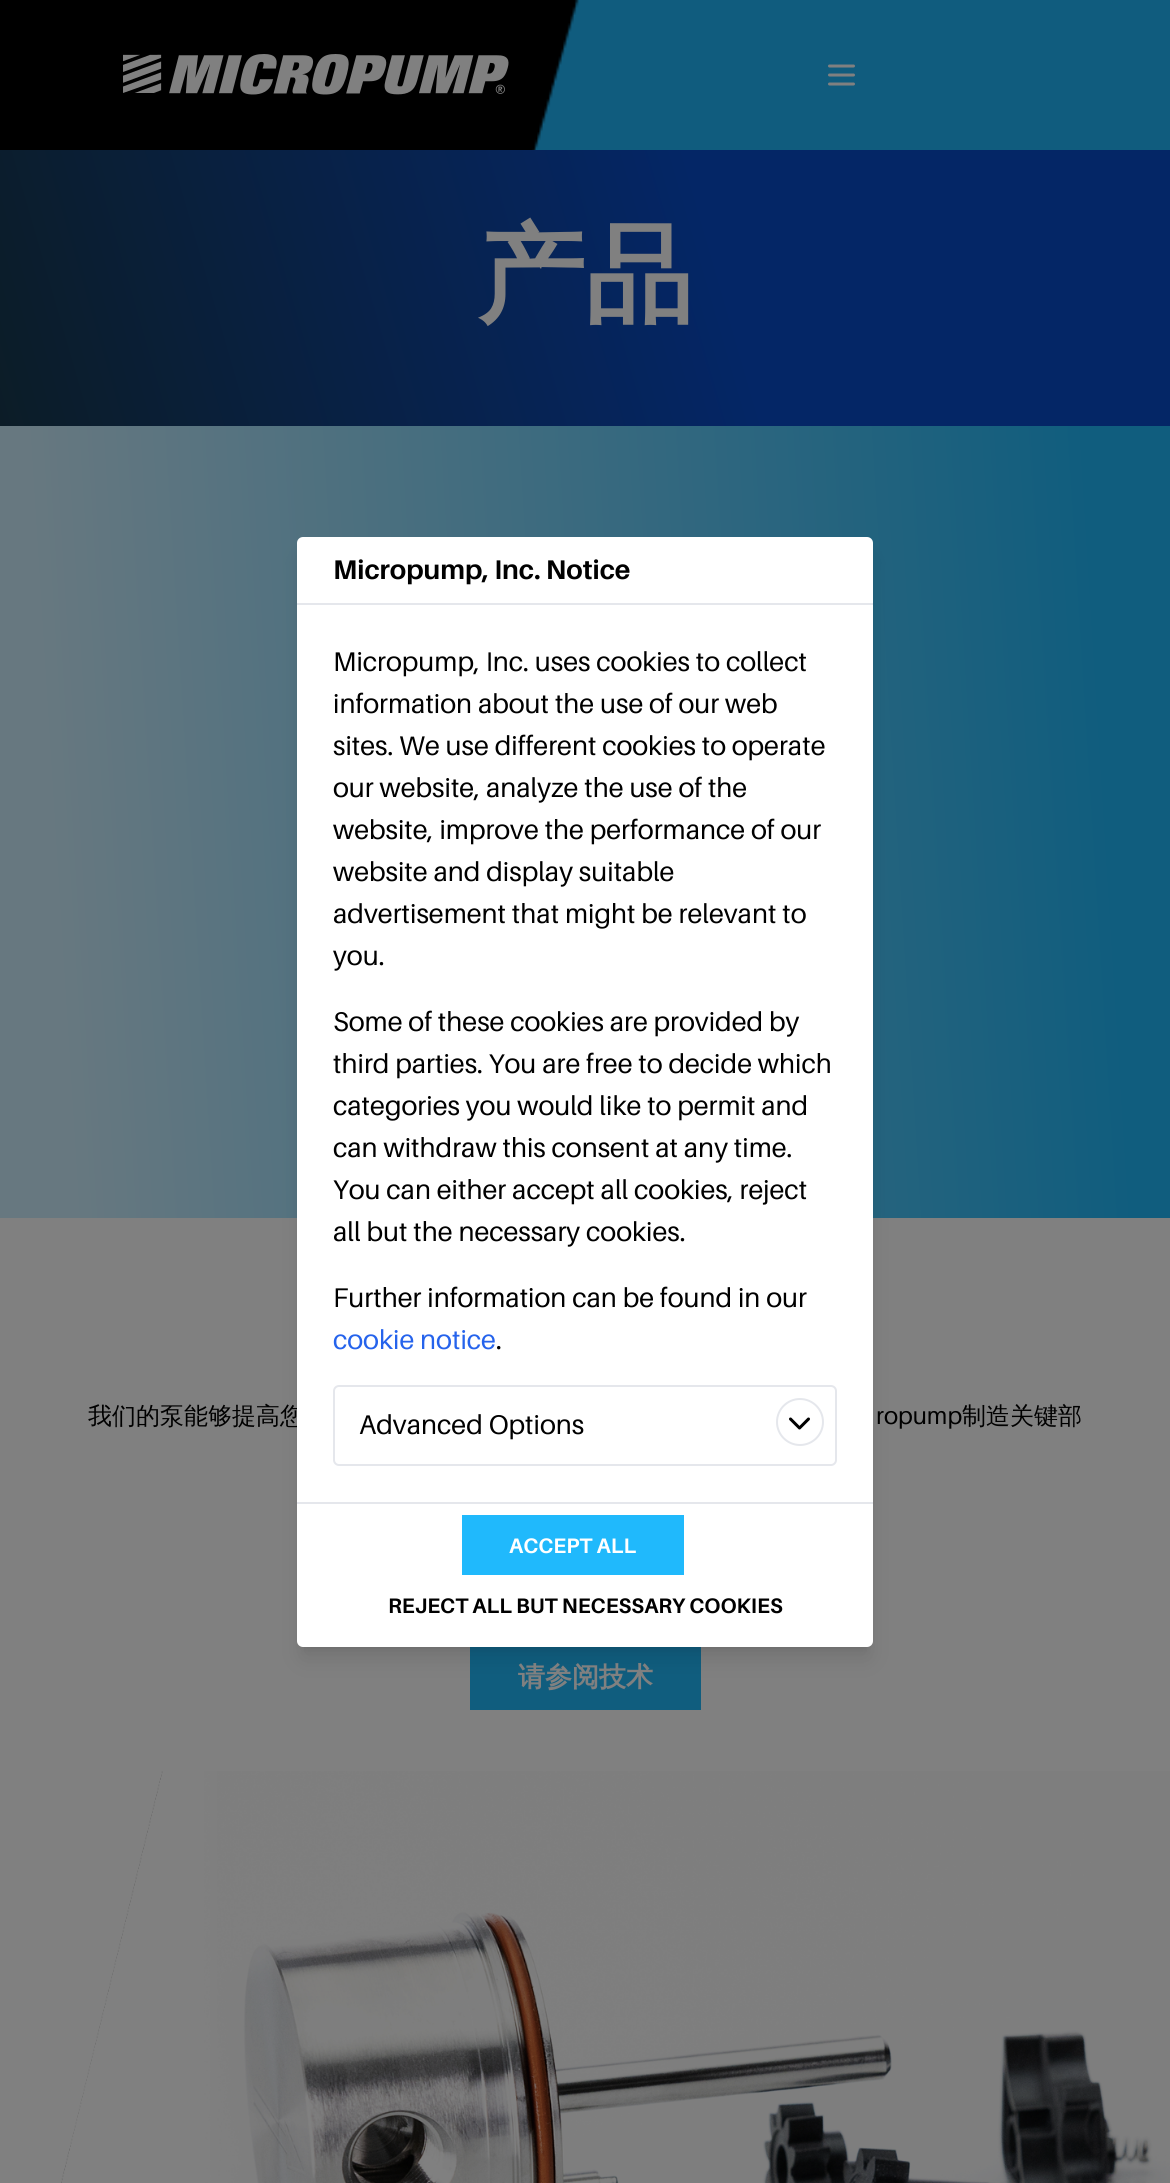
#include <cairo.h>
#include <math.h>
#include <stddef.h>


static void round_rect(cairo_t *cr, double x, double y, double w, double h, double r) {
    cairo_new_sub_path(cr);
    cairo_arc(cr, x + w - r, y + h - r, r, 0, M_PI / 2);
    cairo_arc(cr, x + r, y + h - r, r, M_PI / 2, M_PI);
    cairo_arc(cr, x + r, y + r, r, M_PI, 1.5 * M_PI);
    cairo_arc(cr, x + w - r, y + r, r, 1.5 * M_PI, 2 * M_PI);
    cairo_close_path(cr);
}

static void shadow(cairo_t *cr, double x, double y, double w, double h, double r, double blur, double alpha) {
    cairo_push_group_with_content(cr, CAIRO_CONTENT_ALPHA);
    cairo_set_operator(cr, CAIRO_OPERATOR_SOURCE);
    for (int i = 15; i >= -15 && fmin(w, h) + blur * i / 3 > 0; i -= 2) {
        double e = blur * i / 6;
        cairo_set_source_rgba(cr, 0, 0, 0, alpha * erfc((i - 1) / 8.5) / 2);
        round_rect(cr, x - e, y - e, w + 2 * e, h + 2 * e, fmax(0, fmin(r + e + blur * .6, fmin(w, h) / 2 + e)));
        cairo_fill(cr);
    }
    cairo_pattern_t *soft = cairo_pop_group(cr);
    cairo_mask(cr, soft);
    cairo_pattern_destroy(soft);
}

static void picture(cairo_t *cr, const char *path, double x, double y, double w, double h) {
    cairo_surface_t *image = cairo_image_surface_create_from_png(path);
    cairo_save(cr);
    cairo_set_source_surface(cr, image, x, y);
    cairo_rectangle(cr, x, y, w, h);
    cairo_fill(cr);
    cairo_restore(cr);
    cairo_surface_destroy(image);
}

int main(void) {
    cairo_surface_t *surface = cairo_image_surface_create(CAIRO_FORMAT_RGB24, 1170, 2183);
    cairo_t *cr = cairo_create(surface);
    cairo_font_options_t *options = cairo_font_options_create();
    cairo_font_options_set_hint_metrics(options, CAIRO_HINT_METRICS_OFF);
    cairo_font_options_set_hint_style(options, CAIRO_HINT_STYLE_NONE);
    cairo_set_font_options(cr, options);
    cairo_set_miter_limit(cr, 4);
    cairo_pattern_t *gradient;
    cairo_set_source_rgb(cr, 0.502, 0.502, 0.502);
    cairo_paint(cr);
    cairo_set_source_rgb(cr, 0, 0, 0);
    cairo_rectangle(cr, 0, 0, 579, 150);
    cairo_fill(cr);
    picture(cr, "img1.png", 123, 54, 386, 41);
    picture(cr, "img2.png", 532, 0, 638, 150);
    cairo_new_path(cr);
    cairo_move_to(cr, 829.5, 66);
    cairo_line_to(cr, 853.5, 66);
    cairo_move_to(cr, 829.5, 75);
    cairo_line_to(cr, 853.5, 75);
    cairo_move_to(cr, 829.5, 84);
    cairo_line_to(cr, 853.5, 84);
    cairo_set_source_rgb(cr, 0.502, 0.502, 0.502);
    cairo_set_line_width(cr, 3);
    cairo_set_line_cap(cr, CAIRO_LINE_CAP_ROUND);
    cairo_set_line_join(cr, CAIRO_LINE_JOIN_ROUND);
    cairo_stroke(cr);
    gradient = cairo_pattern_create_linear(1162, 121, -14, 461);
    cairo_pattern_add_color_stop_rgba(gradient, 0.38, 0.016, 0.149, 0.4, 1);
    cairo_pattern_add_color_stop_rgba(gradient, 1, 0.047, 0.11, 0.145, 1);
    cairo_set_source(cr, gradient);
    cairo_pattern_destroy(gradient);
    cairo_rectangle(cr, 0, 150, 1170, 276);
    cairo_fill(cr);
    cairo_select_font_face(cr, "WenQuanYi Zen Hei", CAIRO_FONT_SLANT_NORMAL, CAIRO_FONT_WEIGHT_BOLD);
    cairo_set_font_size(cr, 108);
    cairo_set_source_rgb(cr, 0.502, 0.502, 0.502);
    cairo_move_to(cr, 477, 312);
    cairo_show_text(cr, "产品");
    gradient = cairo_pattern_create_linear(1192, 784, -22, 860);
    cairo_pattern_add_color_stop_rgba(gradient, 0.07, 0.063, 0.365, 0.494, 1);
    cairo_pattern_add_color_stop_rgba(gradient, 0.94, 0.404, 0.471, 0.502, 1);
    cairo_set_source(cr, gradient);
    cairo_pattern_destroy(gradient);
    cairo_rectangle(cr, 0, 426, 1170, 792);
    cairo_fill(cr);
    cairo_set_source_rgb(cr, 0.063, 0.365, 0.494);
    cairo_rectangle(cr, 470, 1647, 231, 63);
    cairo_fill(cr);
    cairo_set_source_rgb(cr, 0, 0, 0);
    shadow(cr, 303, 549, 564, 1098, 0, 4.5, 0.1);
    shadow(cr, 302, 557, 567, 1101, 1.5, 11, 0.1);
    cairo_select_font_face(cr, "WenQuanYi Zen Hei Medium", CAIRO_FONT_SLANT_NORMAL, CAIRO_FONT_WEIGHT_NORMAL);
    cairo_set_font_size(cr, 24);
    cairo_set_source_rgb(cr, 0, 0, 0);
    cairo_move_to(cr, 88, 1424);
    cairo_show_text(cr, "我们的泵能够提高您");
    cairo_set_source_rgb(cr, 1, 1, 1);
    round_rect(cr, 297, 537, 576, 1110, 6);
    cairo_fill(cr);
    cairo_set_source_rgb(cr, 0.898, 0.906, 0.922);
    cairo_rectangle(cr, 297, 603, 576, 2);
    cairo_fill(cr);
    cairo_select_font_face(cr, "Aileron", CAIRO_FONT_SLANT_NORMAL, CAIRO_FONT_WEIGHT_BOLD);
    cairo_set_font_size(cr, 27);
    cairo_set_source_rgb(cr, 0, 0, 0);
    cairo_move_to(cr, 333, 579);
    cairo_show_text(cr, "Micropump, Inc. Notice");
    cairo_select_font_face(cr, "Aileron", CAIRO_FONT_SLANT_NORMAL, CAIRO_FONT_WEIGHT_NORMAL);
    cairo_move_to(cr, 333, 671);
    cairo_show_text(cr, "Micropump, Inc. uses cookies to collect");
    cairo_move_to(cr, 333, 713);
    cairo_show_text(cr, "information about the use of our web");
    cairo_move_to(cr, 333, 755);
    cairo_show_text(cr, "sites. We use different cookies to operate");
    cairo_move_to(cr, 333, 797);
    cairo_show_text(cr, "our website, analyze the use of the");
    cairo_move_to(cr, 333, 839);
    cairo_show_text(cr, "website, improve the performance of our");
    cairo_move_to(cr, 333, 881);
    cairo_show_text(cr, "website and display suitable");
    cairo_move_to(cr, 333, 923);
    cairo_show_text(cr, "advertisement that might be relevant to");
    cairo_move_to(cr, 333, 965);
    cairo_show_text(cr, "you.");
    cairo_move_to(cr, 333, 1031);
    cairo_show_text(cr, "Some of these cookies are provided by");
    cairo_move_to(cr, 333, 1073);
    cairo_show_text(cr, "third parties. You are free to decide which");
    cairo_move_to(cr, 333, 1115);
    cairo_show_text(cr, "categories you would like to permit and");
    cairo_move_to(cr, 333, 1157);
    cairo_show_text(cr, "can withdraw this consent at any time.");
    cairo_move_to(cr, 333, 1199);
    cairo_show_text(cr, "You can either accept all cookies, reject");
    cairo_move_to(cr, 333, 1241);
    cairo_show_text(cr, "all but the necessary cookies.");
    cairo_move_to(cr, 333, 1307);
    cairo_show_text(cr, "Further information can be found in our");
    cairo_set_source_rgb(cr, 0.145, 0.388, 0.922);
    cairo_move_to(cr, 333, 1349);
    cairo_show_text(cr, "cookie notice");
    cairo_set_source_rgb(cr, 0, 0, 0);
    cairo_move_to(cr, 496, 1349);
    cairo_show_text(cr, ".");
    round_rect(cr, 334, 1386, 502, 79, 5);
    cairo_set_source_rgb(cr, 0.898, 0.906, 0.922);
    cairo_set_line_width(cr, 2);
    cairo_set_line_cap(cr, CAIRO_LINE_CAP_BUTT);
    cairo_set_line_join(cr, CAIRO_LINE_JOIN_MITER);
    cairo_stroke(cr);
    cairo_set_source_rgb(cr, 0, 0, 0);
    cairo_move_to(cr, 359, 1434);
    cairo_show_text(cr, "Advanced Options");
    cairo_new_path(cr);
    cairo_arc(cr, 800, 1422, 23, 0, 2 * M_PI);
    cairo_set_source_rgb(cr, 0.898, 0.906, 0.922);
    cairo_stroke(cr);
    picture(cr, "img3.png", 789, 1417, 21, 13);
    cairo_rectangle(cr, 297, 1502, 576, 2);
    cairo_fill(cr);
    cairo_set_source_rgb(cr, 0.125, 0.725, 0.988);
    cairo_rectangle(cr, 462, 1515, 222, 60);
    cairo_fill(cr);
    cairo_select_font_face(cr, "Aileron", CAIRO_FONT_SLANT_NORMAL, CAIRO_FONT_WEIGHT_BOLD);
    cairo_set_font_size(cr, 21);
    cairo_set_source_rgb(cr, 1, 1, 1);
    cairo_move_to(cr, 509, 1553);
    cairo_show_text(cr, "ACCEPT ALL");
    cairo_set_source_rgb(cr, 0, 0, 0);
    cairo_move_to(cr, 388, 1613);
    cairo_show_text(cr, "REJECT ALL BUT NECESSARY COOKIES");
    cairo_select_font_face(cr, "Aileron", CAIRO_FONT_SLANT_NORMAL, CAIRO_FONT_WEIGHT_NORMAL);
    cairo_set_font_size(cr, 24);
    cairo_move_to(cr, 876, 1424);
    cairo_show_text(cr, "ropump");
    cairo_select_font_face(cr, "WenQuanYi Zen Hei Medium", CAIRO_FONT_SLANT_NORMAL, CAIRO_FONT_WEIGHT_NORMAL);
    cairo_move_to(cr, 962, 1424);
    cairo_show_text(cr, "制造关键部");
    cairo_select_font_face(cr, "WenQuanYi Zen Hei", CAIRO_FONT_SLANT_NORMAL, CAIRO_FONT_WEIGHT_BOLD);
    cairo_set_font_size(cr, 27);
    cairo_set_source_rgb(cr, 0.502, 0.502, 0.502);
    cairo_move_to(cr, 518, 1686);
    cairo_show_text(cr, "请参阅技术");
    picture(cr, "img4.png", 61, 1771, 1109, 412);
    cairo_surface_write_to_png(surface, "page.png");
    cairo_font_options_destroy(options);
    cairo_destroy(cr);
    cairo_surface_destroy(surface);
    return 0;
}
